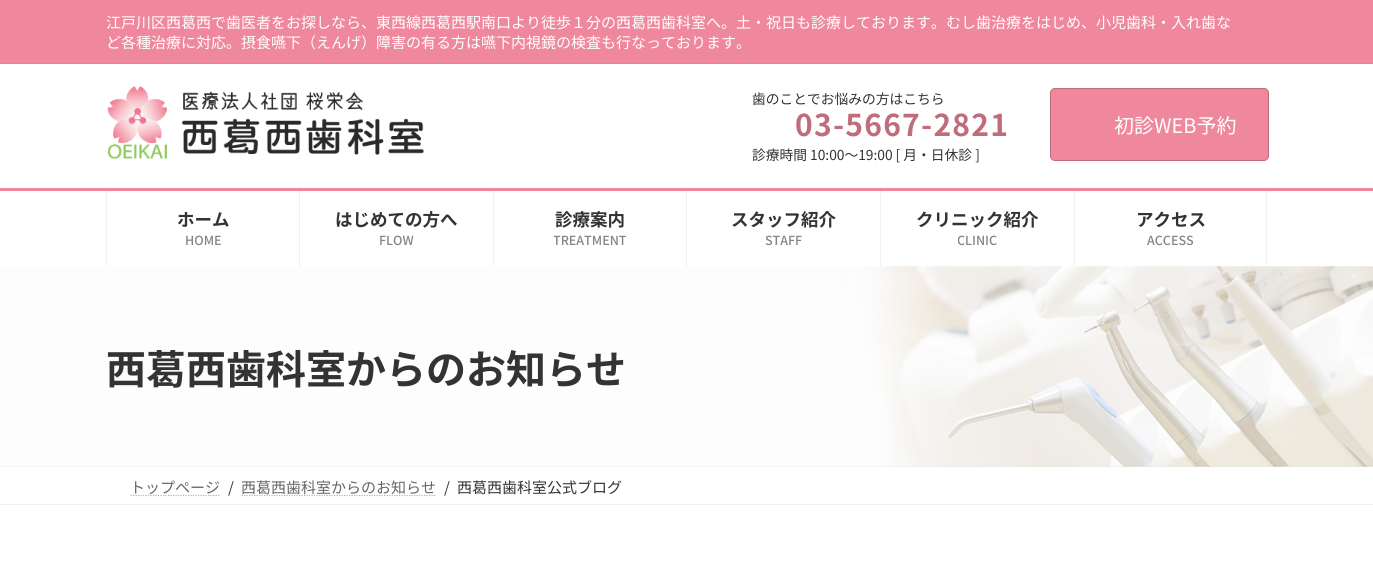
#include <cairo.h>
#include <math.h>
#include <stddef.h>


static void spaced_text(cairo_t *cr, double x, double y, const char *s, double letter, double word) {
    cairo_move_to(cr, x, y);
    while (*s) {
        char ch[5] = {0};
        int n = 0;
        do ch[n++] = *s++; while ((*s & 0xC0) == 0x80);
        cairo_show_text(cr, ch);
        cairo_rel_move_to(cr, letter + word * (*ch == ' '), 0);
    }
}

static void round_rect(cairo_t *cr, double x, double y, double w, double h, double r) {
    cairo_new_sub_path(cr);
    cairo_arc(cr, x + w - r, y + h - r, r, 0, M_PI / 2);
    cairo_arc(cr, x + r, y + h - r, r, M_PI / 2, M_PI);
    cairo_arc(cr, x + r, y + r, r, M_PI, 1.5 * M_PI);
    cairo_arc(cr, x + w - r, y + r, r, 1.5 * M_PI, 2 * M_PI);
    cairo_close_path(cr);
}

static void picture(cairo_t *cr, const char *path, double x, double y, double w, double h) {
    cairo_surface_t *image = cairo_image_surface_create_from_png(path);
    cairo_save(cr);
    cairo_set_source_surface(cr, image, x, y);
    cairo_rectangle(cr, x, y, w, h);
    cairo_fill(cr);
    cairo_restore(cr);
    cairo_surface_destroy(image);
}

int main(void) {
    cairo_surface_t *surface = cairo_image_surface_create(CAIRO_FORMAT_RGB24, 1373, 561);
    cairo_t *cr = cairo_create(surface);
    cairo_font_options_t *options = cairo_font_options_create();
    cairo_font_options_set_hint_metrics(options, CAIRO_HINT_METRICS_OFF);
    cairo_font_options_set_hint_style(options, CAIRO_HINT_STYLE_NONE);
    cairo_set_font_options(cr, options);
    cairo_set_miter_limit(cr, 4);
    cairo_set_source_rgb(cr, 1, 1, 1);
    cairo_paint(cr);
    cairo_set_source_rgb(cr, 0.941, 0.941, 0.941);
    cairo_rectangle(cr, 1266, 190, 1, 76);
    cairo_fill(cr);
    cairo_rectangle(cr, 1074, 190, 1, 76);
    cairo_fill(cr);
    cairo_rectangle(cr, 880, 190, 1, 76);
    cairo_fill(cr);
    cairo_rectangle(cr, 686, 190, 1, 76);
    cairo_fill(cr);
    cairo_rectangle(cr, 493, 190, 1, 76);
    cairo_fill(cr);
    cairo_rectangle(cr, 106, 190, 1, 76);
    cairo_fill(cr);
    cairo_rectangle(cr, 299, 190, 1, 76);
    cairo_fill(cr);
    cairo_set_source_rgb(cr, 0.937, 0.533, 0.612);
    cairo_rectangle(cr, 0, 0, 1373, 63);
    cairo_fill(cr);
    cairo_set_source_rgb(cr, 0.898, 0.514, 0.588);
    cairo_rectangle(cr, 0, 63, 1373, 1);
    cairo_fill(cr);
    cairo_select_font_face(cr, "Noto Sans JP", CAIRO_FONT_SLANT_NORMAL, CAIRO_FONT_WEIGHT_NORMAL);
    cairo_set_font_size(cr, 15);
    cairo_set_source_rgb(cr, 1, 1, 1);
    cairo_move_to(cr, 106, 28);
    cairo_show_text(cr, "江戸川区西葛西で歯医者をお探しなら、東西線西葛西駅南口より徒歩１分の西葛西歯科室へ。土・祝日も診療しております。むし歯治療をはじめ、小児歯科・入れ歯な");
    cairo_move_to(cr, 106, 48);
    cairo_show_text(cr, "ど各種治療に対応。摂食嚥下（えんげ）障害の有る方は嚥下内視鏡の検査も行なっております。");
    picture(cr, "img1.png", 107, 86, 317, 73);
    cairo_set_font_size(cr, 13.75);
    cairo_set_source_rgb(cr, 0.2, 0.2, 0.2);
    cairo_move_to(cr, 752, 104);
    cairo_show_text(cr, "歯のことでお悩みの方はこちら");
    cairo_select_font_face(cr, "Noto Sans JP", CAIRO_FONT_SLANT_NORMAL, CAIRO_FONT_WEIGHT_BOLD);
    cairo_set_font_size(cr, 30);
    cairo_set_source_rgb(cr, 0.749, 0.427, 0.49);
    spaced_text(cr, 795, 136, "03-5667-2821", 1.25, 0);
    cairo_select_font_face(cr, "Noto Sans JP", CAIRO_FONT_SLANT_NORMAL, CAIRO_FONT_WEIGHT_NORMAL);
    cairo_set_font_size(cr, 13.75);
    cairo_set_source_rgb(cr, 0.2, 0.2, 0.2);
    cairo_move_to(cr, 752, 160);
    cairo_show_text(cr, "診療時間 10:00～19:00 [ 月・日休診 ]");
    cairo_set_source_rgb(cr, 0.937, 0.533, 0.612);
    round_rect(cr, 1050.5, 88.5, 218, 72, 4.5);
    cairo_fill_preserve(cr);
    cairo_set_source_rgb(cr, 0.749, 0.427, 0.49);
    cairo_set_line_width(cr, 1);
    cairo_stroke(cr);
    cairo_set_font_size(cr, 20);
    cairo_set_source_rgb(cr, 1, 1, 1);
    cairo_move_to(cr, 1114, 133);
    cairo_show_text(cr, "初診WEB予約");
    cairo_set_source_rgb(cr, 0.937, 0.533, 0.612);
    cairo_rectangle(cr, 0, 188, 1373, 3);
    cairo_fill(cr);
    cairo_set_source_rgb(cr, 0.882, 0.502, 0.576);
    cairo_rectangle(cr, 1266, 190, 1, 1);
    cairo_fill(cr);
    cairo_rectangle(cr, 1074, 190, 1, 1);
    cairo_fill(cr);
    cairo_rectangle(cr, 880, 190, 1, 1);
    cairo_fill(cr);
    cairo_rectangle(cr, 686, 190, 1, 1);
    cairo_fill(cr);
    cairo_rectangle(cr, 493, 190, 1, 1);
    cairo_fill(cr);
    cairo_rectangle(cr, 106, 190, 1, 1);
    cairo_fill(cr);
    cairo_rectangle(cr, 299, 190, 1, 1);
    cairo_fill(cr);
    cairo_select_font_face(cr, "Noto Sans JP", CAIRO_FONT_SLANT_NORMAL, CAIRO_FONT_WEIGHT_BOLD);
    cairo_set_font_size(cr, 17.5);
    cairo_set_source_rgb(cr, 0.2, 0.2, 0.2);
    cairo_move_to(cr, 177, 226);
    cairo_show_text(cr, "ホーム");
    cairo_select_font_face(cr, "Noto Sans JP Medium", CAIRO_FONT_SLANT_NORMAL, CAIRO_FONT_WEIGHT_NORMAL);
    cairo_set_font_size(cr, 12.5);
    cairo_set_source_rgb(cr, 0.522, 0.522, 0.522);
    cairo_move_to(cr, 185, 245);
    cairo_show_text(cr, "HOME");
    cairo_select_font_face(cr, "Noto Sans JP", CAIRO_FONT_SLANT_NORMAL, CAIRO_FONT_WEIGHT_BOLD);
    cairo_set_font_size(cr, 17.5);
    cairo_set_source_rgb(cr, 0.2, 0.2, 0.2);
    cairo_move_to(cr, 335, 226);
    cairo_show_text(cr, "はじめての方へ");
    cairo_select_font_face(cr, "Noto Sans JP Medium", CAIRO_FONT_SLANT_NORMAL, CAIRO_FONT_WEIGHT_NORMAL);
    cairo_set_font_size(cr, 12.5);
    cairo_set_source_rgb(cr, 0.522, 0.522, 0.522);
    cairo_move_to(cr, 379, 245);
    cairo_show_text(cr, "FLOW");
    cairo_select_font_face(cr, "Noto Sans JP", CAIRO_FONT_SLANT_NORMAL, CAIRO_FONT_WEIGHT_BOLD);
    cairo_set_font_size(cr, 17.5);
    cairo_set_source_rgb(cr, 0.2, 0.2, 0.2);
    cairo_move_to(cr, 555, 226);
    cairo_show_text(cr, "診療案内");
    cairo_save(cr);
    cairo_rectangle(cr, 554, 231, 72, 18);
    cairo_clip(cr);
    cairo_select_font_face(cr, "Noto Sans JP Medium", CAIRO_FONT_SLANT_NORMAL, CAIRO_FONT_WEIGHT_NORMAL);
    cairo_set_font_size(cr, 12.5);
    cairo_set_source_rgb(cr, 0.522, 0.522, 0.522);
    cairo_move_to(cr, 553, 245);
    cairo_show_text(cr, "TREATMENT");
    cairo_restore(cr);
    cairo_move_to(cr, 731, 226);
    cairo_show_text(cr, "スタッフ紹介");
    cairo_select_font_face(cr, "Noto Sans JP Medium", CAIRO_FONT_SLANT_NORMAL, CAIRO_FONT_WEIGHT_NORMAL);
    cairo_set_font_size(cr, 12.5);
    cairo_set_source_rgb(cr, 0.522, 0.522, 0.522);
    cairo_move_to(cr, 765, 245);
    cairo_show_text(cr, "STAFF");
    cairo_select_font_face(cr, "Noto Sans JP", CAIRO_FONT_SLANT_NORMAL, CAIRO_FONT_WEIGHT_BOLD);
    cairo_set_font_size(cr, 17.5);
    cairo_set_source_rgb(cr, 0.2, 0.2, 0.2);
    cairo_move_to(cr, 916, 226);
    cairo_show_text(cr, "クリニック紹介");
    cairo_save(cr);
    cairo_rectangle(cr, 958, 231, 40, 18);
    cairo_clip(cr);
    cairo_select_font_face(cr, "Noto Sans JP Medium", CAIRO_FONT_SLANT_NORMAL, CAIRO_FONT_WEIGHT_NORMAL);
    cairo_set_font_size(cr, 12.5);
    cairo_set_source_rgb(cr, 0.522, 0.522, 0.522);
    cairo_move_to(cr, 957, 245);
    cairo_show_text(cr, "CLINIC");
    cairo_restore(cr);
    cairo_move_to(cr, 1136, 226);
    cairo_show_text(cr, "アクセス");
    cairo_select_font_face(cr, "Noto Sans JP Medium", CAIRO_FONT_SLANT_NORMAL, CAIRO_FONT_WEIGHT_NORMAL);
    cairo_set_font_size(cr, 12.5);
    cairo_set_source_rgb(cr, 0.522, 0.522, 0.522);
    cairo_move_to(cr, 1147, 245);
    cairo_show_text(cr, "ACCESS");
    cairo_set_source_rgb(cr, 0.941, 0.941, 0.941);
    cairo_rectangle(cr, 0, 466, 1373, 1);
    cairo_fill(cr);
    picture(cr, "img2.png", 0, 266, 1373, 201);
    cairo_select_font_face(cr, "Noto Sans JP", CAIRO_FONT_SLANT_NORMAL, CAIRO_FONT_WEIGHT_BOLD);
    cairo_set_font_size(cr, 40);
    cairo_set_source_rgb(cr, 0.2, 0.2, 0.2);
    cairo_move_to(cr, 106, 384);
    cairo_show_text(cr, "西葛西歯科室からのお知らせ");
    cairo_set_source_rgb(cr, 0.941, 0.941, 0.941);
    cairo_rectangle(cr, 0, 504, 1373, 1);
    cairo_fill(cr);
    cairo_new_path(cr);
    cairo_move_to(cr, 130.5, 495.5);
    cairo_line_to(cr, 220.5, 495.5);
    cairo_set_source_rgb(cr, 0.702, 0.702, 0.702);
    cairo_set_line_width(cr, 1.2);
    cairo_set_dash(cr, (double[]){1.25, 1.25}, 2, 0);
    cairo_stroke(cr);
    cairo_select_font_face(cr, "Noto Sans JP", CAIRO_FONT_SLANT_NORMAL, CAIRO_FONT_WEIGHT_NORMAL);
    cairo_set_font_size(cr, 15);
    cairo_set_source_rgb(cr, 0.4, 0.4, 0.4);
    cairo_move_to(cr, 130, 493);
    cairo_show_text(cr, "トップページ");
    cairo_set_source_rgb(cr, 0.2, 0.2, 0.2);
    cairo_move_to(cr, 228, 493);
    cairo_show_text(cr, "/");
    cairo_new_path(cr);
    cairo_move_to(cr, 241.5, 495.5);
    cairo_line_to(cr, 436.5, 495.5);
    cairo_set_source_rgb(cr, 0.702, 0.702, 0.702);
    cairo_stroke(cr);
    cairo_set_source_rgb(cr, 0.4, 0.4, 0.4);
    cairo_move_to(cr, 241, 493);
    cairo_show_text(cr, "西葛西歯科室からのお知らせ");
    cairo_set_source_rgb(cr, 0.2, 0.2, 0.2);
    cairo_move_to(cr, 444, 493);
    cairo_show_text(cr, "/");
    cairo_move_to(cr, 457, 493);
    cairo_show_text(cr, "西葛西歯科室公式ブログ");
    cairo_surface_write_to_png(surface, "page.png");
    cairo_font_options_destroy(options);
    cairo_destroy(cr);
    cairo_surface_destroy(surface);
    return 0;
}
